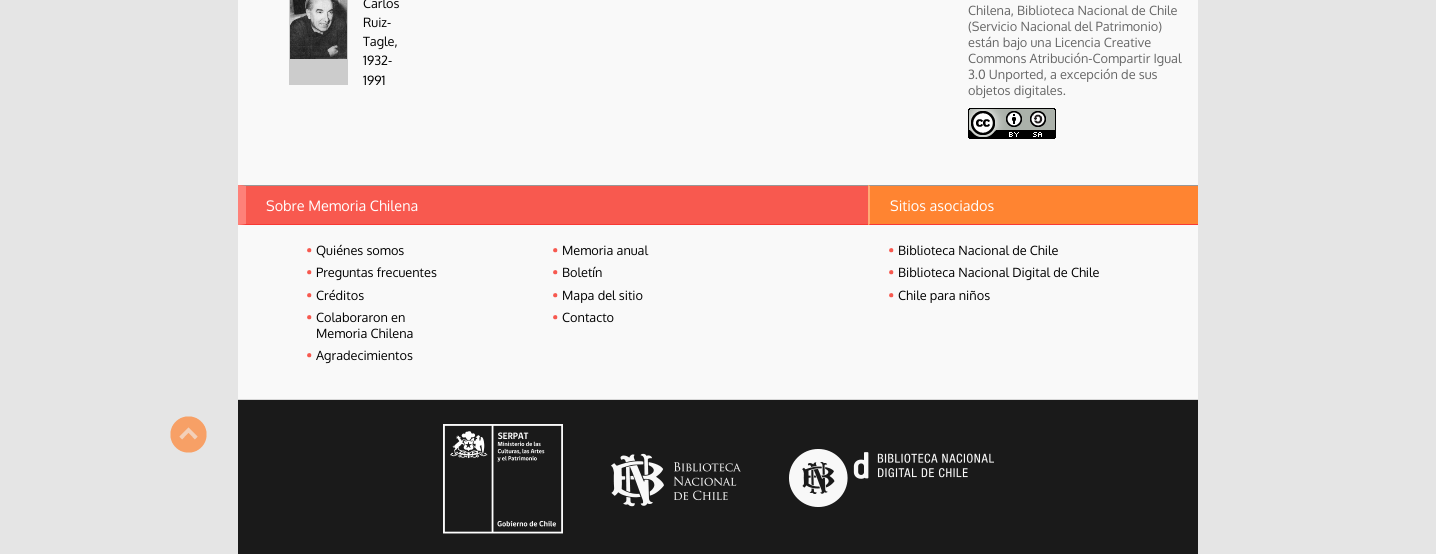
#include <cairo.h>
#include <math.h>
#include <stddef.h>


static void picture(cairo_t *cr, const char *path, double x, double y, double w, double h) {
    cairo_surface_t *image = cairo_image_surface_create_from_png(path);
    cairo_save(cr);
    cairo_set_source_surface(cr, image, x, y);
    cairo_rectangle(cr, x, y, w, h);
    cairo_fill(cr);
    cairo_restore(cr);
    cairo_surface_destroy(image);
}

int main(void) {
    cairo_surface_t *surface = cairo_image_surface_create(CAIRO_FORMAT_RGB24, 1436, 554);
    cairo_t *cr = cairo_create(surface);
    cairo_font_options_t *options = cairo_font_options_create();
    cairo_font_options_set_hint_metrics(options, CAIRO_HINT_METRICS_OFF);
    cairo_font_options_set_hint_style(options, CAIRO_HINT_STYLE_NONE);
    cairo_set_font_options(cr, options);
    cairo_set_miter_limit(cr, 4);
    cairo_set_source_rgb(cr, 0.898, 0.898, 0.898);
    cairo_paint(cr);
    cairo_set_source_rgb(cr, 0.973, 0.973, 0.973);
    cairo_rectangle(cr, 238, 0, 960, 399);
    cairo_fill(cr);
    cairo_set_source_rgb(cr, 0.8, 0.8, 0.8);
    cairo_rectangle(cr, 289, 0, 59, 85);
    cairo_fill(cr);
    picture(cr, "img1.png", 290, 0, 57, 59);
    cairo_select_font_face(cr, "Oxygen", CAIRO_FONT_SLANT_NORMAL, CAIRO_FONT_WEIGHT_NORMAL);
    cairo_set_font_size(cr, 12.75);
    cairo_set_source_rgb(cr, 0, 0, 0);
    cairo_move_to(cr, 363, 8);
    cairo_show_text(cr, "Carlos");
    cairo_move_to(cr, 363, 27);
    cairo_show_text(cr, "Ruiz-");
    cairo_move_to(cr, 363, 46);
    cairo_show_text(cr, "Tagle,");
    cairo_move_to(cr, 363, 65);
    cairo_show_text(cr, "1932-");
    cairo_move_to(cr, 363, 85);
    cairo_show_text(cr, "1991");
    cairo_set_source_rgb(cr, 0.4, 0.4, 0.4);
    cairo_move_to(cr, 968, 15);
    cairo_show_text(cr, "Chilena, Biblioteca Nacional de Chile");
    cairo_move_to(cr, 968, 31);
    cairo_show_text(cr, "(Servicio Nacional del Patrimonio)");
    cairo_move_to(cr, 968, 47);
    cairo_show_text(cr, "están bajo una Licencia Creative");
    cairo_move_to(cr, 968, 63);
    cairo_show_text(cr, "Commons Atribución-Compartir Igual");
    cairo_move_to(cr, 968, 79);
    cairo_show_text(cr, "3.0 Unported, a excepción de sus");
    cairo_move_to(cr, 968, 95);
    cairo_show_text(cr, "objetos digitales.");
    picture(cr, "img2.png", 968, 108, 88, 31);
    cairo_set_source_rgb(cr, 0.969, 0.349, 0.31);
    cairo_rectangle(cr, 238, 185, 630, 40);
    cairo_fill(cr);
    cairo_set_source_rgb(cr, 0.596, 0.596, 0.596);
    cairo_new_path(cr);
    cairo_move_to(cr, 238, 185);
    cairo_line_to(cr, 868, 185);
    cairo_line_to(cr, 868, 186);
    cairo_line_to(cr, 246, 186);
    cairo_close_path(cr);
    cairo_fill(cr);
    cairo_set_source_rgb(cr, 0.969, 0.224, 0.204);
    cairo_new_path(cr);
    cairo_move_to(cr, 868, 225);
    cairo_line_to(cr, 238, 225);
    cairo_line_to(cr, 246, 224);
    cairo_line_to(cr, 868, 224);
    cairo_close_path(cr);
    cairo_fill(cr);
    cairo_set_source_rgb(cr, 0.996, 0.506, 0.475);
    cairo_new_path(cr);
    cairo_move_to(cr, 238, 225);
    cairo_line_to(cr, 238, 185);
    cairo_line_to(cr, 246, 186);
    cairo_line_to(cr, 246, 224);
    cairo_close_path(cr);
    cairo_fill(cr);
    cairo_set_font_size(cr, 14.4);
    cairo_set_source_rgb(cr, 1, 1, 1);
    cairo_move_to(cr, 266, 211);
    cairo_show_text(cr, "Sobre Memoria Chilena");
    picture(cr, "img3.png", 307, 248, 5, 5);
    cairo_set_font_size(cr, 12.75);
    cairo_set_source_rgb(cr, 0, 0, 0);
    cairo_move_to(cr, 316, 255);
    cairo_show_text(cr, "Quiénes somos");
    picture(cr, "img3.png", 307, 270, 5, 5);
    cairo_move_to(cr, 316, 277);
    cairo_show_text(cr, "Preguntas frecuentes");
    picture(cr, "img3.png", 307, 293, 5, 5);
    cairo_move_to(cr, 316, 300);
    cairo_show_text(cr, "Créditos");
    picture(cr, "img3.png", 307, 315, 5, 5);
    cairo_move_to(cr, 316, 322);
    cairo_show_text(cr, "Colaboraron en");
    cairo_move_to(cr, 316, 338);
    cairo_show_text(cr, "Memoria Chilena");
    picture(cr, "img3.png", 307, 353, 5, 5);
    cairo_move_to(cr, 316, 360);
    cairo_show_text(cr, "Agradecimientos");
    picture(cr, "img3.png", 553, 248, 5, 5);
    cairo_move_to(cr, 562, 255);
    cairo_show_text(cr, "Memoria anual");
    picture(cr, "img3.png", 553, 270, 5, 5);
    cairo_move_to(cr, 562, 277);
    cairo_show_text(cr, "Boletín");
    picture(cr, "img3.png", 553, 293, 5, 5);
    cairo_move_to(cr, 562, 300);
    cairo_show_text(cr, "Mapa del sitio");
    picture(cr, "img3.png", 553, 315, 5, 5);
    cairo_move_to(cr, 562, 322);
    cairo_show_text(cr, "Contacto");
    cairo_set_source_rgb(cr, 1, 0.518, 0.192);
    cairo_rectangle(cr, 868, 185, 330, 40);
    cairo_fill(cr);
    cairo_set_source_rgb(cr, 0.596, 0.596, 0.596);
    cairo_new_path(cr);
    cairo_move_to(cr, 868, 185);
    cairo_line_to(cr, 1198, 185);
    cairo_line_to(cr, 1198, 186);
    cairo_line_to(cr, 870, 186);
    cairo_close_path(cr);
    cairo_fill(cr);
    cairo_set_source_rgb(cr, 0.969, 0.224, 0.204);
    cairo_new_path(cr);
    cairo_move_to(cr, 1198, 225);
    cairo_line_to(cr, 868, 225);
    cairo_line_to(cr, 870, 224);
    cairo_line_to(cr, 1198, 224);
    cairo_close_path(cr);
    cairo_fill(cr);
    cairo_set_source_rgb(cr, 1, 0.667, 0.455);
    cairo_new_path(cr);
    cairo_move_to(cr, 868, 225);
    cairo_line_to(cr, 868, 185);
    cairo_line_to(cr, 870, 186);
    cairo_line_to(cr, 870, 224);
    cairo_close_path(cr);
    cairo_fill(cr);
    cairo_set_font_size(cr, 14.4);
    cairo_set_source_rgb(cr, 1, 1, 1);
    cairo_move_to(cr, 890, 211);
    cairo_show_text(cr, "Sitios asociados");
    picture(cr, "img3.png", 889, 248, 5, 5);
    cairo_set_font_size(cr, 12.75);
    cairo_set_source_rgb(cr, 0, 0, 0);
    cairo_move_to(cr, 898, 255);
    cairo_show_text(cr, "Biblioteca Nacional de Chile");
    picture(cr, "img3.png", 889, 270, 5, 5);
    cairo_move_to(cr, 898, 277);
    cairo_show_text(cr, "Biblioteca Nacional Digital de Chile");
    picture(cr, "img3.png", 889, 293, 5, 5);
    cairo_move_to(cr, 898, 300);
    cairo_show_text(cr, "Chile para niños");
    picture(cr, "img4.png", 170, 416, 37, 37);
    cairo_set_source_rgb(cr, 0.102, 0.102, 0.102);
    cairo_rectangle(cr, 238, 400, 960, 154);
    cairo_fill(cr);
    cairo_set_source_rgb(cr, 0.843, 0.843, 0.843);
    cairo_rectangle(cr, 238, 399, 960, 1);
    cairo_fill(cr);
    picture(cr, "img5.png", 443, 424, 120, 110);
    picture(cr, "img6.png", 611, 453, 130, 54);
    picture(cr, "img7.png", 789, 449, 205, 58);
    cairo_surface_write_to_png(surface, "page.png");
    cairo_font_options_destroy(options);
    cairo_destroy(cr);
    cairo_surface_destroy(surface);
    return 0;
}
